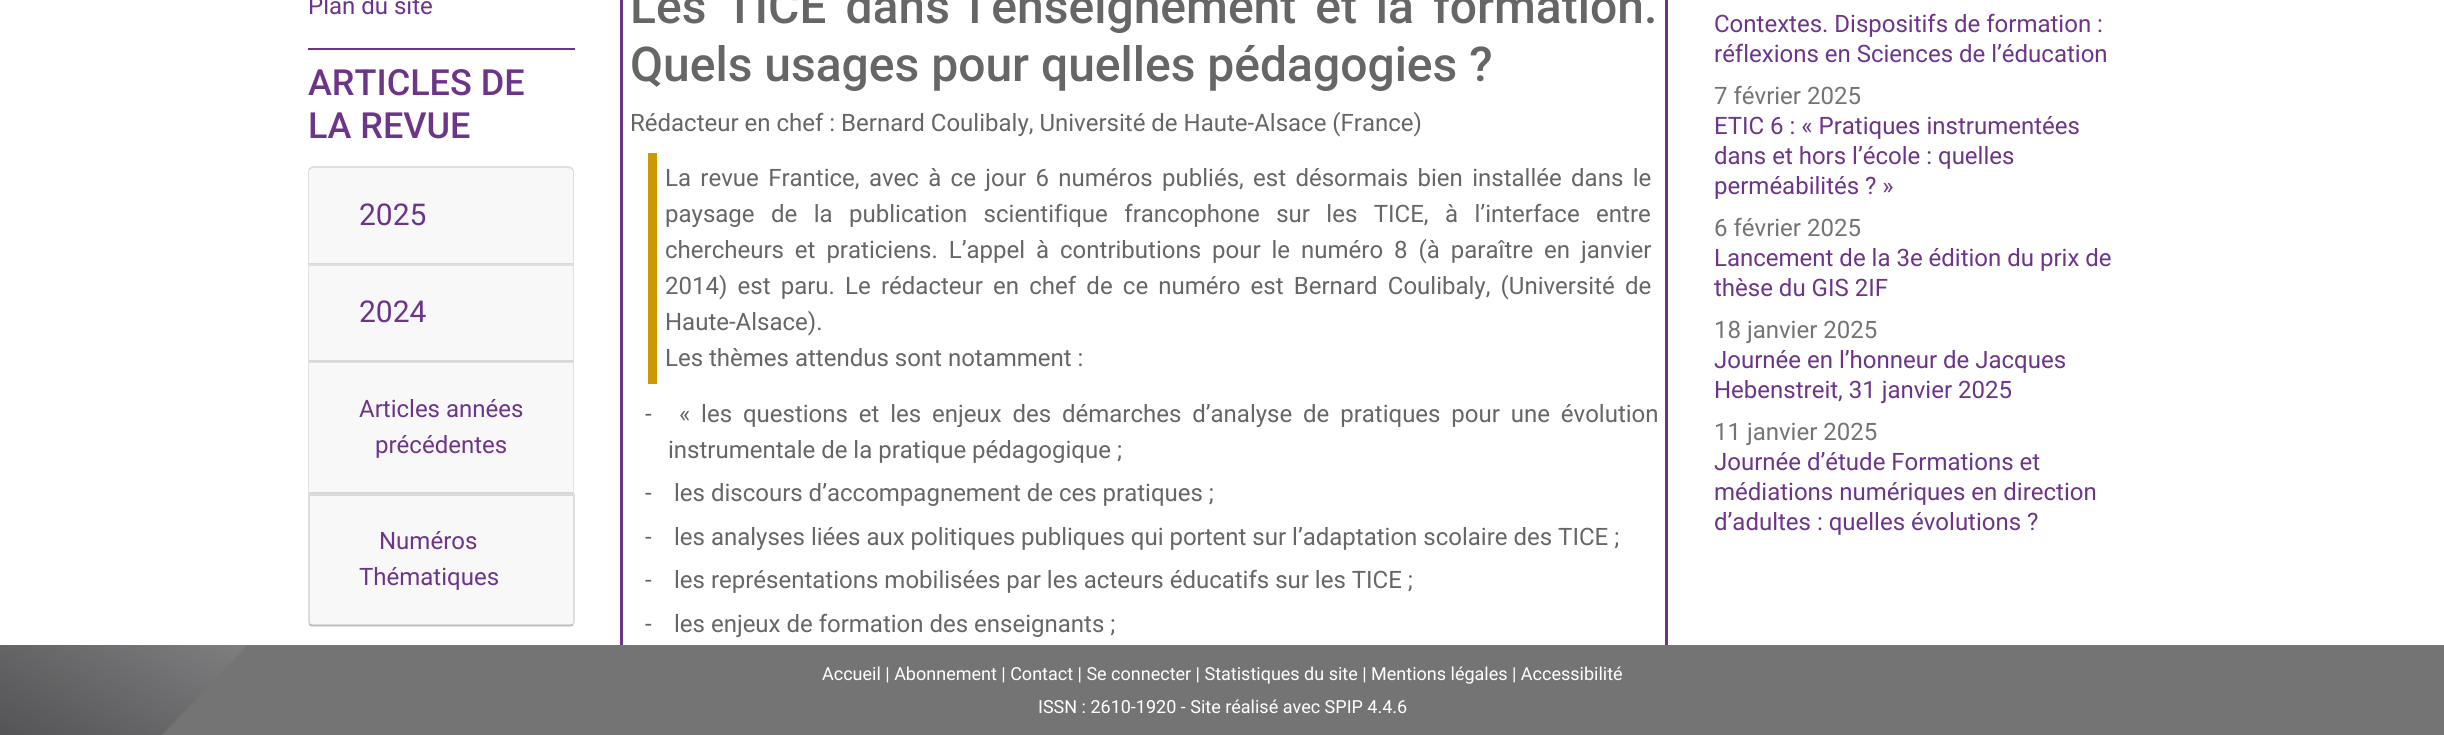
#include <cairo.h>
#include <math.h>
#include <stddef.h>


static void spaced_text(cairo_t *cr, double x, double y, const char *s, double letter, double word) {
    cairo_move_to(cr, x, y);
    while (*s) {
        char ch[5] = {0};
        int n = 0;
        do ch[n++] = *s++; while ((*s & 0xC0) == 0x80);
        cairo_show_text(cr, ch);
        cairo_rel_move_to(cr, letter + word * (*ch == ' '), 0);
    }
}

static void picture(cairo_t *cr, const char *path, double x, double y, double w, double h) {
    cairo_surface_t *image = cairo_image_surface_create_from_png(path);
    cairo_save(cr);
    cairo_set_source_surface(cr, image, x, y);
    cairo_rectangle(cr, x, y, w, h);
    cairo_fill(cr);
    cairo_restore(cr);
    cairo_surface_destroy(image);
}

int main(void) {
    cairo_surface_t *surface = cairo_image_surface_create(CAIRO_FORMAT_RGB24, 2444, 735);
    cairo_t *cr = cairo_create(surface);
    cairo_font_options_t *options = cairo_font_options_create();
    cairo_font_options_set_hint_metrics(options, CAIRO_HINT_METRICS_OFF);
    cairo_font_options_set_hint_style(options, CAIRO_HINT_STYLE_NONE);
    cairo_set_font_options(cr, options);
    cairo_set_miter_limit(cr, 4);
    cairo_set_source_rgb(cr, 1, 1, 1);
    cairo_paint(cr);
    cairo_select_font_face(cr, "Roboto", CAIRO_FONT_SLANT_NORMAL, CAIRO_FONT_WEIGHT_NORMAL);
    cairo_set_font_size(cr, 24);
    cairo_set_source_rgb(cr, 0.424, 0.208, 0.541);
    cairo_move_to(cr, 308, 14);
    cairo_show_text(cr, "Plan du site");
    cairo_rectangle(cr, 308, 48, 267, 2);
    cairo_fill(cr);
    cairo_select_font_face(cr, "Roboto Medium", CAIRO_FONT_SLANT_NORMAL, CAIRO_FONT_WEIGHT_NORMAL);
    cairo_set_font_size(cr, 36);
    cairo_move_to(cr, 308, 95);
    cairo_show_text(cr, "ARTICLES DE");
    cairo_move_to(cr, 308, 138);
    cairo_show_text(cr, "LA REVUE");
    cairo_set_source_rgb(cr, 0.875, 0.875, 0.875);
    cairo_set_fill_rule(cr, CAIRO_FILL_RULE_EVEN_ODD);
    cairo_new_path(cr);
    cairo_move_to(cr, 314, 166);
    cairo_line_to(cr, 568, 166);
    cairo_curve_to(cr, 572, 166, 574, 169, 574, 172);
    cairo_line_to(cr, 574, 264);
    cairo_line_to(cr, 308, 264);
    cairo_line_to(cr, 308, 172);
    cairo_curve_to(cr, 308, 169, 310, 166, 314, 166);
    cairo_close_path(cr);
    cairo_move_to(cr, 314, 168);
    cairo_line_to(cr, 568, 168);
    cairo_curve_to(cr, 571, 168, 573, 170, 573, 172);
    cairo_line_to(cr, 573, 264);
    cairo_line_to(cr, 309, 264);
    cairo_line_to(cr, 309, 172);
    cairo_curve_to(cr, 309, 170, 311, 168, 314, 168);
    cairo_close_path(cr);
    cairo_fill(cr);
    cairo_set_source_rgba(cr, 0, 0, 0, 0.03);
    cairo_rectangle(cr, 309, 168, 264, 96);
    cairo_fill(cr);
    cairo_set_source_rgba(cr, 0, 0, 0, 0.12);
    cairo_rectangle(cr, 309, 263, 264, 1);
    cairo_fill(cr);
    cairo_select_font_face(cr, "Roboto", CAIRO_FONT_SLANT_NORMAL, CAIRO_FONT_WEIGHT_NORMAL);
    cairo_set_font_size(cr, 30);
    cairo_set_source_rgb(cr, 0.424, 0.208, 0.541);
    cairo_move_to(cr, 359, 225);
    cairo_show_text(cr, "2025");
    cairo_set_source_rgb(cr, 0.875, 0.875, 0.875);
    cairo_set_fill_rule(cr, CAIRO_FILL_RULE_WINDING);
    cairo_new_path(cr);
    cairo_move_to(cr, 308, 264);
    cairo_line_to(cr, 574, 264);
    cairo_line_to(cr, 573, 266);
    cairo_line_to(cr, 309, 266);
    cairo_close_path(cr);
    cairo_fill(cr);
    cairo_set_source_rgba(cr, 0, 0, 0, 0.12);
    cairo_new_path(cr);
    cairo_move_to(cr, 574, 264);
    cairo_line_to(cr, 574, 362);
    cairo_line_to(cr, 573, 362);
    cairo_line_to(cr, 573, 266);
    cairo_close_path(cr);
    cairo_fill(cr);
    cairo_new_path(cr);
    cairo_move_to(cr, 308, 362);
    cairo_line_to(cr, 308, 264);
    cairo_line_to(cr, 309, 266);
    cairo_line_to(cr, 309, 362);
    cairo_close_path(cr);
    cairo_fill(cr);
    cairo_set_source_rgb(cr, 0.969, 0.969, 0.969);
    cairo_rectangle(cr, 309, 266, 264, 94);
    cairo_fill(cr);
    cairo_set_source_rgb(cr, 0.847, 0.847, 0.847);
    cairo_rectangle(cr, 309, 360, 264, 2);
    cairo_fill(cr);
    cairo_set_source_rgb(cr, 0.424, 0.208, 0.541);
    cairo_move_to(cr, 359, 322);
    cairo_show_text(cr, "2024");
    cairo_set_source_rgb(cr, 0.875, 0.875, 0.875);
    cairo_new_path(cr);
    cairo_move_to(cr, 308, 362);
    cairo_line_to(cr, 574, 362);
    cairo_line_to(cr, 573, 363);
    cairo_line_to(cr, 309, 363);
    cairo_close_path(cr);
    cairo_fill(cr);
    cairo_set_source_rgba(cr, 0, 0, 0, 0.12);
    cairo_new_path(cr);
    cairo_move_to(cr, 574, 362);
    cairo_line_to(cr, 574, 494);
    cairo_line_to(cr, 573, 494);
    cairo_line_to(cr, 573, 363);
    cairo_close_path(cr);
    cairo_fill(cr);
    cairo_new_path(cr);
    cairo_move_to(cr, 308, 494);
    cairo_line_to(cr, 308, 362);
    cairo_line_to(cr, 309, 363);
    cairo_line_to(cr, 309, 494);
    cairo_close_path(cr);
    cairo_fill(cr);
    cairo_set_source_rgb(cr, 0.969, 0.969, 0.969);
    cairo_rectangle(cr, 309, 363, 264, 129);
    cairo_fill(cr);
    cairo_set_source_rgb(cr, 0.847, 0.847, 0.847);
    cairo_rectangle(cr, 309, 492, 264, 2);
    cairo_fill(cr);
    cairo_set_font_size(cr, 24);
    cairo_set_source_rgb(cr, 0.424, 0.208, 0.541);
    cairo_move_to(cr, 359, 417);
    cairo_show_text(cr, "Articles années");
    cairo_move_to(cr, 375, 453);
    cairo_show_text(cr, "précédentes");
    cairo_new_path(cr);
    cairo_move_to(cr, 309, 495);
    cairo_line_to(cr, 574, 495);
    cairo_line_to(cr, 574, 621);
    cairo_curve_to(cr, 574, 624, 572, 626, 569, 626);
    cairo_line_to(cr, 314, 626);
    cairo_curve_to(cr, 311, 626, 309, 624, 309, 621);
    cairo_close_path(cr);
    cairo_set_source_rgb(cr, 0.875, 0.875, 0.875);
    cairo_stroke(cr);
    cairo_set_source_rgba(cr, 0, 0, 0, 0.03);
    cairo_rectangle(cr, 309, 495, 264, 131);
    cairo_fill(cr);
    cairo_set_source_rgba(cr, 0, 0, 0, 0.12);
    cairo_rectangle(cr, 309, 624, 264, 2);
    cairo_fill(cr);
    cairo_set_source_rgb(cr, 0.424, 0.208, 0.541);
    cairo_move_to(cr, 379, 549);
    cairo_show_text(cr, "Numéros");
    cairo_move_to(cr, 359, 585);
    cairo_show_text(cr, "Thématiques");
    cairo_rectangle(cr, 621.5, -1.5, 1045, 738);
    cairo_set_line_width(cr, 3);
    cairo_stroke(cr);
    cairo_select_font_face(cr, "Roboto Medium", CAIRO_FONT_SLANT_NORMAL, CAIRO_FONT_WEIGHT_NORMAL);
    cairo_set_font_size(cr, 48);
    cairo_set_source_rgb(cr, 0.4, 0.4, 0.4);
    spaced_text(cr, 630, 23, "Les TICE dans l’enseignement et la formation.", 0, 7);
    cairo_move_to(cr, 630, 81);
    cairo_show_text(cr, "Quels usages pour quelles pédagogies ?");
    cairo_select_font_face(cr, "Roboto", CAIRO_FONT_SLANT_NORMAL, CAIRO_FONT_WEIGHT_NORMAL);
    cairo_set_font_size(cr, 24);
    cairo_move_to(cr, 630, 131);
    cairo_show_text(cr, "Rédacteur en chef : Bernard Coulibaly, Université de Haute-Alsace (France)");
    cairo_set_source_rgb(cr, 0.8, 0.6, 0);
    cairo_rectangle(cr, 648, 153, 9, 231);
    cairo_fill(cr);
    cairo_set_source_rgb(cr, 0.4, 0.4, 0.4);
    spaced_text(cr, 665, 186, "La revue Frantice, avec à ce jour 6 numéros publiés, est désormais bien installée dans le", 0, 3.4);
    spaced_text(cr, 665, 222, "paysage de la publication scientifique francophone sur les TICE, à l’interface entre", 0, 10.5);
    spaced_text(cr, 665, 258, "chercheurs et praticiens. L’appel à contributions pour le numéro 8 (à paraître en janvier", 0, 5);
    spaced_text(cr, 665, 294, "2014) est paru. Le rédacteur en chef de ce numéro est Bernard Coulibaly, (Université de", 0, 4.25);
    cairo_move_to(cr, 665, 330);
    cairo_show_text(cr, "Haute-Alsace).");
    cairo_move_to(cr, 665, 366);
    cairo_show_text(cr, "Les thèmes attendus sont notamment :");
    cairo_move_to(cr, 645, 422);
    cairo_show_text(cr, "-");
    spaced_text(cr, 679, 422, "« les questions et les enjeux des démarches d’analyse de pratiques pour une évolution", 0, 4.9);
    cairo_move_to(cr, 668, 458);
    cairo_show_text(cr, "instrumentale de la pratique pédagogique ;");
    cairo_move_to(cr, 645, 501);
    cairo_show_text(cr, "-");
    cairo_move_to(cr, 674, 501);
    cairo_show_text(cr, "les discours d’accompagnement de ces pratiques ;");
    cairo_move_to(cr, 645, 545);
    cairo_show_text(cr, "-");
    cairo_move_to(cr, 674, 545);
    cairo_show_text(cr, "les analyses liées aux politiques publiques qui portent sur l’adaptation scolaire des TICE ;");
    cairo_move_to(cr, 645, 588);
    cairo_show_text(cr, "-");
    cairo_move_to(cr, 674, 588);
    cairo_show_text(cr, "les représentations mobilisées par les acteurs éducatifs sur les TICE ;");
    cairo_move_to(cr, 645, 632);
    cairo_show_text(cr, "-");
    cairo_move_to(cr, 674, 632);
    cairo_show_text(cr, "les enjeux de formation des enseignants ;");
    cairo_set_source_rgb(cr, 0.424, 0.208, 0.541);
    cairo_move_to(cr, 1714, 32);
    cairo_show_text(cr, "Contextes. Dispositifs de formation :");
    cairo_move_to(cr, 1714, 62);
    cairo_show_text(cr, "réflexions en Sciences de l’éducation");
    cairo_set_source_rgb(cr, 0.455, 0.455, 0.455);
    cairo_move_to(cr, 1714, 104);
    cairo_show_text(cr, "7 février 2025");
    cairo_set_source_rgb(cr, 0.424, 0.208, 0.541);
    cairo_move_to(cr, 1714, 134);
    cairo_show_text(cr, "ETIC 6 : « Pratiques instrumentées");
    cairo_move_to(cr, 1714, 164);
    cairo_show_text(cr, "dans et hors l’école : quelles");
    cairo_move_to(cr, 1714, 194);
    cairo_show_text(cr, "perméabilités ? »");
    cairo_set_source_rgb(cr, 0.455, 0.455, 0.455);
    cairo_move_to(cr, 1714, 236);
    cairo_show_text(cr, "6 février 2025");
    cairo_set_source_rgb(cr, 0.424, 0.208, 0.541);
    cairo_move_to(cr, 1714, 266);
    cairo_show_text(cr, "Lancement de la 3e édition du prix de");
    cairo_move_to(cr, 1714, 296);
    cairo_show_text(cr, "thèse du GIS 2IF");
    cairo_set_source_rgb(cr, 0.455, 0.455, 0.455);
    cairo_move_to(cr, 1714, 338);
    cairo_show_text(cr, "18 janvier 2025");
    cairo_set_source_rgb(cr, 0.424, 0.208, 0.541);
    cairo_move_to(cr, 1714, 368);
    cairo_show_text(cr, "Journée en l’honneur de Jacques");
    cairo_move_to(cr, 1714, 398);
    cairo_show_text(cr, "Hebenstreit, 31 janvier 2025");
    cairo_set_source_rgb(cr, 0.455, 0.455, 0.455);
    cairo_move_to(cr, 1714, 440);
    cairo_show_text(cr, "11 janvier 2025");
    cairo_set_source_rgb(cr, 0.424, 0.208, 0.541);
    cairo_move_to(cr, 1714, 470);
    cairo_show_text(cr, "Journée d’étude Formations et");
    cairo_move_to(cr, 1714, 500);
    cairo_show_text(cr, "médiations numériques en direction");
    cairo_move_to(cr, 1714, 530);
    cairo_show_text(cr, "d’adultes : quelles évolutions ?");
    cairo_set_source_rgb(cr, 0.455, 0.455, 0.455);
    cairo_rectangle(cr, 0, 645, 2444, 90);
    cairo_fill(cr);
    picture(cr, "img1.png", 0, 645, 247, 90);
    cairo_set_font_size(cr, 18);
    cairo_set_source_rgb(cr, 1, 1, 1);
    cairo_move_to(cr, 822, 680);
    cairo_show_text(cr, "Accueil | Abonnement | Contact | Se connecter | Statistiques du site | Mentions légales | Accessibilité");
    cairo_move_to(cr, 1038, 713);
    cairo_show_text(cr, "ISSN : 2610-1920 - Site réalisé avec SPIP 4.4.6");
    cairo_surface_write_to_png(surface, "page.png");
    cairo_font_options_destroy(options);
    cairo_destroy(cr);
    cairo_surface_destroy(surface);
    return 0;
}
